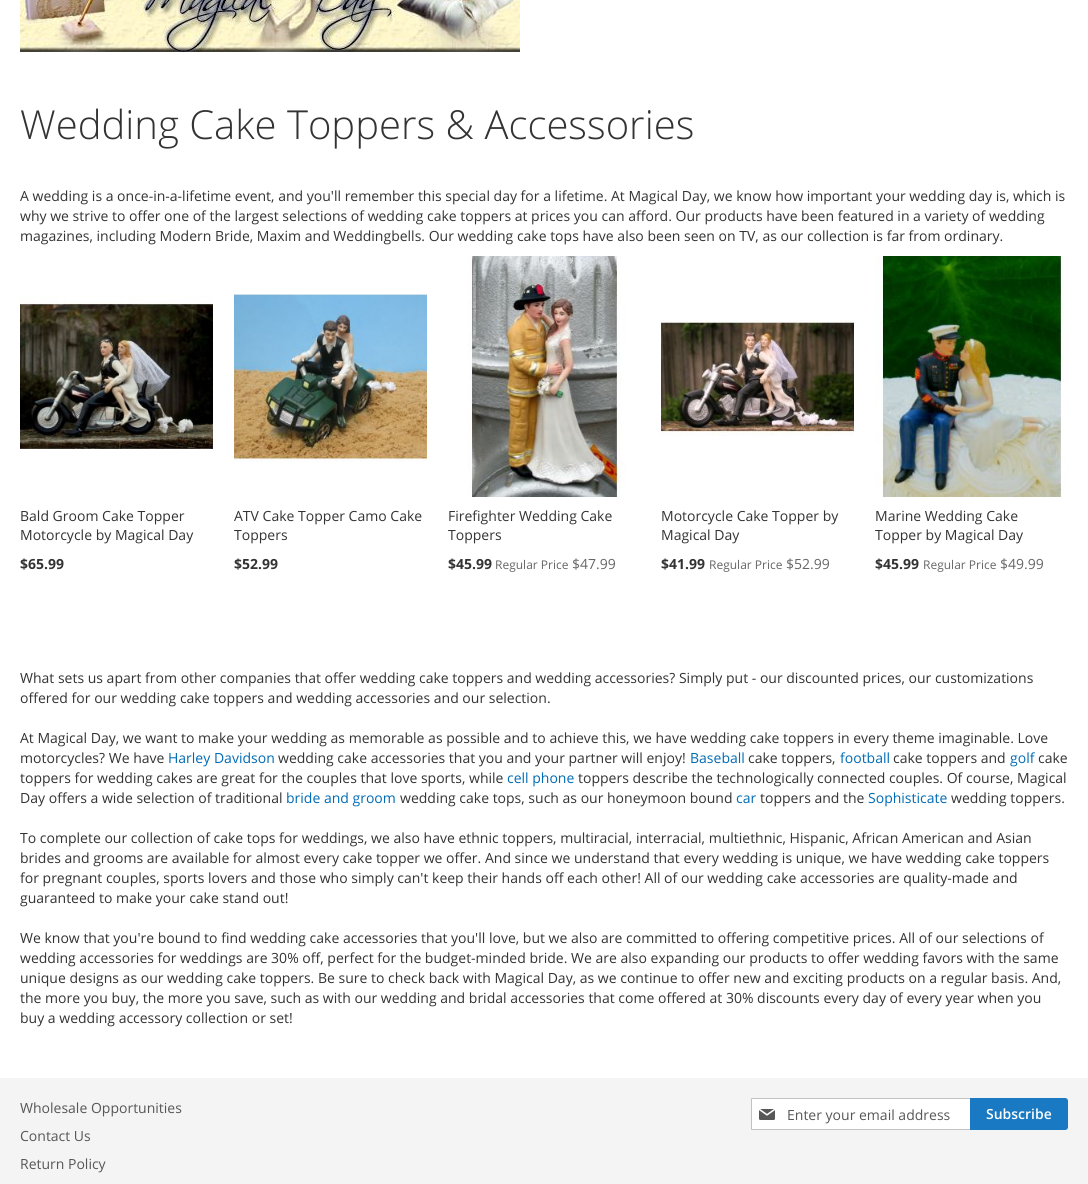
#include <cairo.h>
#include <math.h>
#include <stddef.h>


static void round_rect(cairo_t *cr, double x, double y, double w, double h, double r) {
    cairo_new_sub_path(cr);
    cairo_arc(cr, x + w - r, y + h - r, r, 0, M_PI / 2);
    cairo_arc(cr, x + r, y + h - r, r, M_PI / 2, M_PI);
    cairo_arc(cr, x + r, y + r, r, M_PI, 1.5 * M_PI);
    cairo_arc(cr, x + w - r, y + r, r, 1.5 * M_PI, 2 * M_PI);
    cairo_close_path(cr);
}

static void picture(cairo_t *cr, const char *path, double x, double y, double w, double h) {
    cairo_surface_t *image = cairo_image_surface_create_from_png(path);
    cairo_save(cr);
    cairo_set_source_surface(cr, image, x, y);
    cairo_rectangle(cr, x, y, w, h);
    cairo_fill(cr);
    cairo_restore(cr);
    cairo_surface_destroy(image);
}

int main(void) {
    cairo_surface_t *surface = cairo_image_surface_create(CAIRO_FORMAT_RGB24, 1088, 1184);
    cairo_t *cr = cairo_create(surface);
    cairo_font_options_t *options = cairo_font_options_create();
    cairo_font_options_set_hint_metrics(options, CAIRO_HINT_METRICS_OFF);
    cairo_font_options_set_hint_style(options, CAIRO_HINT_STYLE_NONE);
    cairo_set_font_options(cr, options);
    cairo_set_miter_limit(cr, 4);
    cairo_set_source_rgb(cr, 1, 1, 1);
    cairo_paint(cr);
    picture(cr, "img1.png", 20, 0, 500, 52);
    cairo_select_font_face(cr, "Open Sans Light", CAIRO_FONT_SLANT_NORMAL, CAIRO_FONT_WEIGHT_NORMAL);
    cairo_set_font_size(cr, 40);
    cairo_set_source_rgb(cr, 0.2, 0.2, 0.2);
    cairo_move_to(cr, 20, 139);
    cairo_show_text(cr, "Wedding Cake Toppers & Accessories");
    cairo_select_font_face(cr, "Open Sans", CAIRO_FONT_SLANT_NORMAL, CAIRO_FONT_WEIGHT_NORMAL);
    cairo_set_font_size(cr, 14);
    cairo_move_to(cr, 20, 201);
    cairo_show_text(cr, "A wedding is a once-in-a-lifetime event, and you'll remember this special day for a lifetime. At Magical Day, we know how important your wedding day is, which is");
    cairo_move_to(cr, 20, 221);
    cairo_show_text(cr, "why we strive to offer one of the largest selections of wedding cake toppers at prices you can afford. Our products have been featured in a variety of wedding");
    cairo_move_to(cr, 20, 241);
    cairo_show_text(cr, "magazines, including Modern Bride, Maxim and Weddingbells. Our wedding cake tops have also been seen on TV, as our collection is far from ordinary.");
    picture(cr, "img2.png", 20, 295, 193, 154);
    cairo_move_to(cr, 20, 521);
    cairo_show_text(cr, "Bald Groom Cake Topper");
    cairo_move_to(cr, 20, 540);
    cairo_show_text(cr, "Motorcycle by Magical Day");
    cairo_select_font_face(cr, "Open Sans", CAIRO_FONT_SLANT_NORMAL, CAIRO_FONT_WEIGHT_BOLD);
    cairo_move_to(cr, 20, 569);
    cairo_show_text(cr, "$65.99");
    picture(cr, "img3.png", 234, 294, 193, 168);
    cairo_select_font_face(cr, "Open Sans", CAIRO_FONT_SLANT_NORMAL, CAIRO_FONT_WEIGHT_NORMAL);
    cairo_move_to(cr, 234, 521);
    cairo_show_text(cr, "ATV Cake Topper Camo Cake");
    cairo_move_to(cr, 234, 540);
    cairo_show_text(cr, "Toppers");
    cairo_select_font_face(cr, "Open Sans", CAIRO_FONT_SLANT_NORMAL, CAIRO_FONT_WEIGHT_BOLD);
    cairo_move_to(cr, 234, 569);
    cairo_show_text(cr, "$52.99");
    picture(cr, "img4.png", 468, 256, 159, 241);
    cairo_select_font_face(cr, "Open Sans", CAIRO_FONT_SLANT_NORMAL, CAIRO_FONT_WEIGHT_NORMAL);
    cairo_move_to(cr, 448, 521);
    cairo_show_text(cr, "Firefighter Wedding Cake");
    cairo_move_to(cr, 448, 540);
    cairo_show_text(cr, "Toppers");
    cairo_select_font_face(cr, "Open Sans", CAIRO_FONT_SLANT_NORMAL, CAIRO_FONT_WEIGHT_BOLD);
    cairo_move_to(cr, 448, 569);
    cairo_show_text(cr, "$45.99");
    cairo_select_font_face(cr, "Open Sans", CAIRO_FONT_SLANT_NORMAL, CAIRO_FONT_WEIGHT_NORMAL);
    cairo_set_font_size(cr, 12);
    cairo_set_source_rgb(cr, 0.4, 0.4, 0.4);
    cairo_move_to(cr, 495, 569);
    cairo_show_text(cr, "Regular Price");
    cairo_set_font_size(cr, 14);
    cairo_move_to(cr, 572, 569);
    cairo_show_text(cr, "$47.99");
    picture(cr, "img5.png", 661, 320, 193, 116);
    cairo_set_source_rgb(cr, 0.2, 0.2, 0.2);
    cairo_move_to(cr, 661, 521);
    cairo_show_text(cr, "Motorcycle Cake Topper by");
    cairo_move_to(cr, 661, 540);
    cairo_show_text(cr, "Magical Day");
    cairo_select_font_face(cr, "Open Sans", CAIRO_FONT_SLANT_NORMAL, CAIRO_FONT_WEIGHT_BOLD);
    cairo_move_to(cr, 661, 569);
    cairo_show_text(cr, "$41.99");
    cairo_select_font_face(cr, "Open Sans", CAIRO_FONT_SLANT_NORMAL, CAIRO_FONT_WEIGHT_NORMAL);
    cairo_set_font_size(cr, 12);
    cairo_set_source_rgb(cr, 0.4, 0.4, 0.4);
    cairo_move_to(cr, 709, 569);
    cairo_show_text(cr, "Regular Price");
    cairo_set_font_size(cr, 14);
    cairo_move_to(cr, 786, 569);
    cairo_show_text(cr, "$52.99");
    picture(cr, "img6.png", 875, 256, 193, 241);
    cairo_set_source_rgb(cr, 0.2, 0.2, 0.2);
    cairo_move_to(cr, 875, 521);
    cairo_show_text(cr, "Marine Wedding Cake");
    cairo_move_to(cr, 875, 540);
    cairo_show_text(cr, "Topper by Magical Day");
    cairo_select_font_face(cr, "Open Sans", CAIRO_FONT_SLANT_NORMAL, CAIRO_FONT_WEIGHT_BOLD);
    cairo_move_to(cr, 875, 569);
    cairo_show_text(cr, "$45.99");
    cairo_select_font_face(cr, "Open Sans", CAIRO_FONT_SLANT_NORMAL, CAIRO_FONT_WEIGHT_NORMAL);
    cairo_set_font_size(cr, 12);
    cairo_set_source_rgb(cr, 0.4, 0.4, 0.4);
    cairo_move_to(cr, 923, 569);
    cairo_show_text(cr, "Regular Price");
    cairo_set_font_size(cr, 14);
    cairo_move_to(cr, 1000, 569);
    cairo_show_text(cr, "$49.99");
    cairo_set_source_rgb(cr, 0.2, 0.2, 0.2);
    cairo_move_to(cr, 20, 683);
    cairo_show_text(cr, "What sets us apart from other companies that offer wedding cake toppers and wedding accessories? Simply put - our discounted prices, our customizations");
    cairo_move_to(cr, 20, 703);
    cairo_show_text(cr, "offered for our wedding cake toppers and wedding accessories and our selection.");
    cairo_move_to(cr, 20, 743);
    cairo_show_text(cr, "At Magical Day, we want to make your wedding as memorable as possible and to achieve this, we have wedding cake toppers in every theme imaginable. Love");
    cairo_move_to(cr, 20, 763);
    cairo_show_text(cr, "motorcycles? We have");
    cairo_set_source_rgb(cr, 0, 0.42, 0.706);
    cairo_move_to(cr, 168, 763);
    cairo_show_text(cr, "Harley Davidson");
    cairo_set_source_rgb(cr, 0.2, 0.2, 0.2);
    cairo_move_to(cr, 278, 763);
    cairo_show_text(cr, "wedding cake accessories that you and your partner will enjoy!");
    cairo_set_source_rgb(cr, 0, 0.42, 0.706);
    cairo_move_to(cr, 690, 763);
    cairo_show_text(cr, "Baseball");
    cairo_set_source_rgb(cr, 0.2, 0.2, 0.2);
    cairo_move_to(cr, 748, 763);
    cairo_show_text(cr, "cake toppers,");
    cairo_set_source_rgb(cr, 0, 0.42, 0.706);
    cairo_move_to(cr, 840, 763);
    cairo_show_text(cr, "football");
    cairo_set_source_rgb(cr, 0.2, 0.2, 0.2);
    cairo_move_to(cr, 893, 763);
    cairo_show_text(cr, "cake toppers and");
    cairo_set_source_rgb(cr, 0, 0.42, 0.706);
    cairo_move_to(cr, 1010, 763);
    cairo_show_text(cr, "golf");
    cairo_set_source_rgb(cr, 0.2, 0.2, 0.2);
    cairo_move_to(cr, 1038, 763);
    cairo_show_text(cr, "cake");
    cairo_move_to(cr, 20, 783);
    cairo_show_text(cr, "toppers for wedding cakes are great for the couples that love sports, while");
    cairo_set_source_rgb(cr, 0, 0.42, 0.706);
    cairo_move_to(cr, 507, 783);
    cairo_show_text(cr, "cell phone");
    cairo_set_source_rgb(cr, 0.2, 0.2, 0.2);
    cairo_move_to(cr, 578, 783);
    cairo_show_text(cr, "toppers describe the technologically connected couples. Of course, Magical");
    cairo_move_to(cr, 20, 803);
    cairo_show_text(cr, "Day offers a wide selection of traditional");
    cairo_set_source_rgb(cr, 0, 0.42, 0.706);
    cairo_move_to(cr, 286, 803);
    cairo_show_text(cr, "bride and groom");
    cairo_set_source_rgb(cr, 0.2, 0.2, 0.2);
    cairo_move_to(cr, 400, 803);
    cairo_show_text(cr, "wedding cake tops, such as our honeymoon bound");
    cairo_set_source_rgb(cr, 0, 0.42, 0.706);
    cairo_move_to(cr, 736, 803);
    cairo_show_text(cr, "car");
    cairo_set_source_rgb(cr, 0.2, 0.2, 0.2);
    cairo_move_to(cr, 760, 803);
    cairo_show_text(cr, "toppers and the");
    cairo_set_source_rgb(cr, 0, 0.42, 0.706);
    cairo_move_to(cr, 868, 803);
    cairo_show_text(cr, "Sophisticate");
    cairo_set_source_rgb(cr, 0.2, 0.2, 0.2);
    cairo_move_to(cr, 951, 803);
    cairo_show_text(cr, "wedding toppers.");
    cairo_move_to(cr, 20, 843);
    cairo_show_text(cr, "To complete our collection of cake tops for weddings, we also have ethnic toppers, multiracial, interracial, multiethnic, Hispanic, African American and Asian");
    cairo_move_to(cr, 20, 863);
    cairo_show_text(cr, "brides and grooms are available for almost every cake topper we offer. And since we understand that every wedding is unique, we have wedding cake toppers");
    cairo_move_to(cr, 20, 883);
    cairo_show_text(cr, "for pregnant couples, sports lovers and those who simply can't keep their hands off each other! All of our wedding cake accessories are quality-made and");
    cairo_move_to(cr, 20, 903);
    cairo_show_text(cr, "guaranteed to make your cake stand out!");
    cairo_move_to(cr, 20, 943);
    cairo_show_text(cr, "We know that you're bound to find wedding cake accessories that you'll love, but we also are committed to offering competitive prices. All of our selections of");
    cairo_move_to(cr, 20, 963);
    cairo_show_text(cr, "wedding accessories for weddings are 30% off, perfect for the budget-minded bride. We are also expanding our products to offer wedding favors with the same");
    cairo_move_to(cr, 20, 983);
    cairo_show_text(cr, "unique designs as our wedding cake toppers. Be sure to check back with Magical Day, as we continue to offer new and exciting products on a regular basis. And,");
    cairo_move_to(cr, 20, 1003);
    cairo_show_text(cr, "the more you buy, the more you save, such as with our wedding and bridal accessories that come offered at 30% discounts every day of every year when you");
    cairo_move_to(cr, 20, 1023);
    cairo_show_text(cr, "buy a wedding accessory collection or set!");
    cairo_set_source_rgb(cr, 0.957, 0.957, 0.957);
    cairo_rectangle(cr, 0, 1078, 1088, 106);
    cairo_fill(cr);
    cairo_set_source_rgb(cr, 0.341, 0.341, 0.341);
    cairo_move_to(cr, 20, 1113);
    cairo_show_text(cr, "Wholesale Opportunities");
    cairo_move_to(cr, 20, 1141);
    cairo_show_text(cr, "Contact Us");
    cairo_move_to(cr, 20, 1169);
    cairo_show_text(cr, "Return Policy");
    cairo_set_source_rgb(cr, 1, 1, 1);
    round_rect(cr, 751.5, 1098.5, 219, 31, 0.5);
    cairo_fill_preserve(cr);
    cairo_set_source_rgb(cr, 0.761, 0.761, 0.761);
    cairo_set_line_width(cr, 1);
    cairo_stroke(cr);
    picture(cr, "img7.png", 759, 1109, 16, 11);
    cairo_set_source_rgb(cr, 0.341, 0.341, 0.341);
    cairo_move_to(cr, 787, 1120);
    cairo_show_text(cr, "Enter your email address");
    cairo_set_source_rgb(cr, 0.098, 0.475, 0.765);
    cairo_new_path(cr);
    cairo_move_to(cr, 970.5, 1098.5);
    cairo_line_to(cr, 1065, 1098.5);
    cairo_curve_to(cr, 1066.5, 1098.5, 1067.5, 1099.5, 1067.5, 1101);
    cairo_line_to(cr, 1067.5, 1127);
    cairo_curve_to(cr, 1067.5, 1128.5, 1066.5, 1129.5, 1065, 1129.5);
    cairo_line_to(cr, 970.5, 1129.5);
    cairo_close_path(cr);
    cairo_fill_preserve(cr);
    cairo_stroke(cr);
    cairo_select_font_face(cr, "Open Sans SemiBold", CAIRO_FONT_SLANT_NORMAL, CAIRO_FONT_WEIGHT_NORMAL);
    cairo_set_source_rgb(cr, 1, 1, 1);
    cairo_move_to(cr, 986, 1119);
    cairo_show_text(cr, "Subscribe");
    cairo_surface_write_to_png(surface, "page.png");
    cairo_font_options_destroy(options);
    cairo_destroy(cr);
    cairo_surface_destroy(surface);
    return 0;
}
